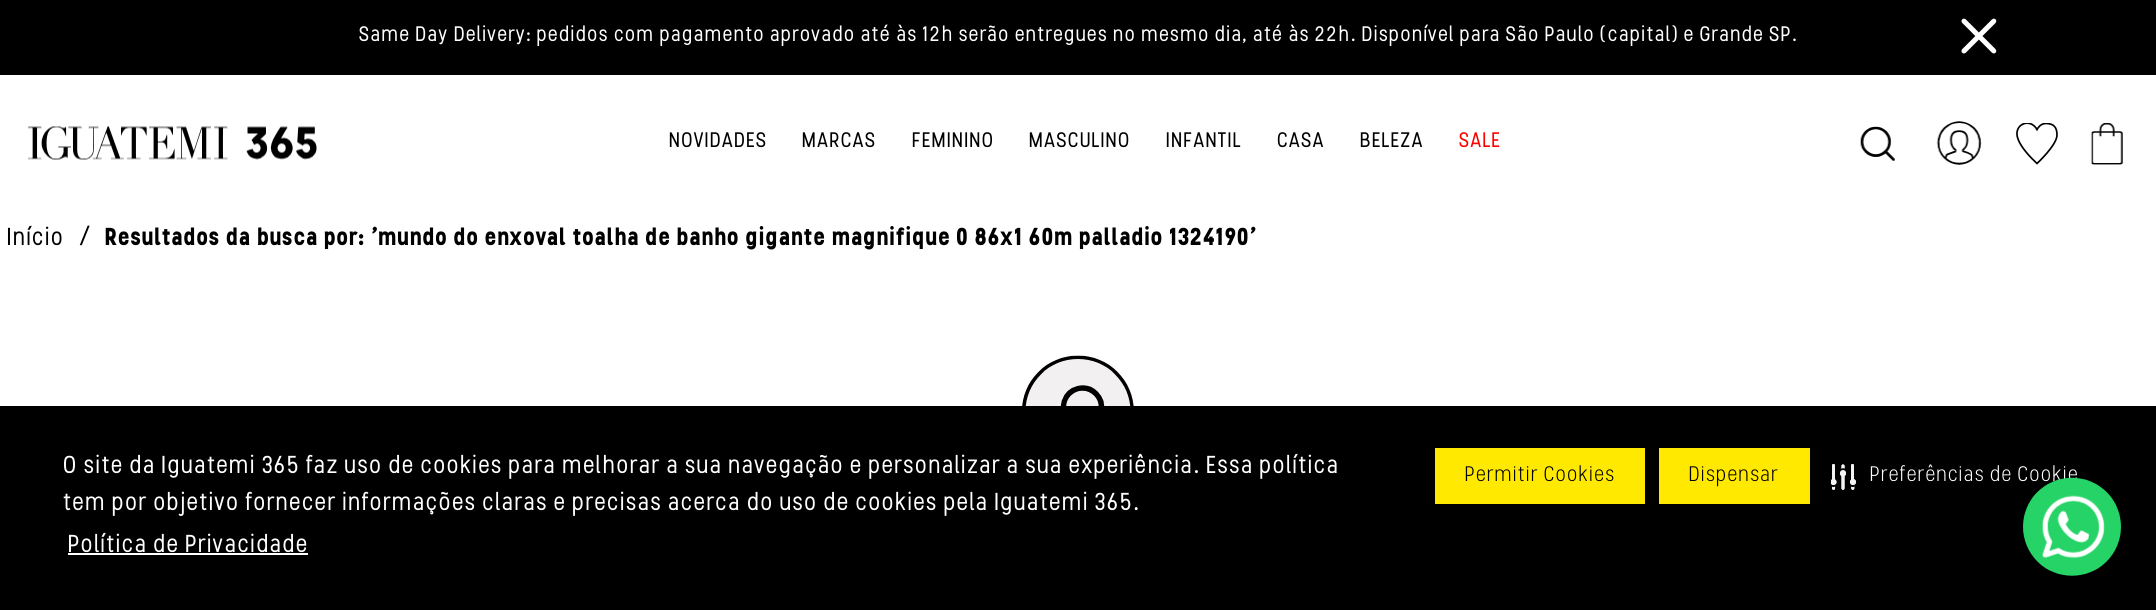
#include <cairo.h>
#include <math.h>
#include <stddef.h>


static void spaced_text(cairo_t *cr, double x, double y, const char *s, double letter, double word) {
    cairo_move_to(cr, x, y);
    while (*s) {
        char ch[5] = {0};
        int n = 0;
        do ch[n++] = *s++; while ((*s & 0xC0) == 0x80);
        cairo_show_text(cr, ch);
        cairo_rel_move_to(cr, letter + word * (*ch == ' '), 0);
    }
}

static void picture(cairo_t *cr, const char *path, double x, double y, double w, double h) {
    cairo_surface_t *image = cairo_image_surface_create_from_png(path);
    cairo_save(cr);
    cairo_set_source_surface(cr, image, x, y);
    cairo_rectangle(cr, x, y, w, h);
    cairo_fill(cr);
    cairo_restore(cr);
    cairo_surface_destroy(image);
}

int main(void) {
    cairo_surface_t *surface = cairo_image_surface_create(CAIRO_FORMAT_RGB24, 2156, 610);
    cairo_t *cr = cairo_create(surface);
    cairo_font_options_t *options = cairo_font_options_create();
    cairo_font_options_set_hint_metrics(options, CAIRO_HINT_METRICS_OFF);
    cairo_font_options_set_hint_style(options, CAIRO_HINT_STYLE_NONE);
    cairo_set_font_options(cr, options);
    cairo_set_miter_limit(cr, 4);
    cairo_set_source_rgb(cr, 1, 1, 1);
    cairo_paint(cr);
    cairo_set_source_rgb(cr, 0, 0, 0);
    cairo_rectangle(cr, 0, 0, 2156, 75);
    cairo_fill(cr);
    cairo_select_font_face(cr, "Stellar", CAIRO_FONT_SLANT_NORMAL, CAIRO_FONT_WEIGHT_NORMAL);
    cairo_set_font_size(cr, 21);
    cairo_set_source_rgb(cr, 1, 1, 1);
    spaced_text(cr, 359, 41, "Same Day Delivery: pedidos com pagamento aprovado até às 12h serão entregues no mesmo dia, até às 22h. Disponível para São Paulo (capital) e Grande SP.", 0.28, 0);
    picture(cr, "img1.png", 1961, 18, 36, 36);
    picture(cr, "img2.png", 28, 126, 289, 34);
    cairo_set_source_rgb(cr, 0, 0, 0);
    spaced_text(cr, 669, 147, "NOVIDADES", 0.28, 0);
    spaced_text(cr, 802, 147, "MARCAS", 0.28, 0);
    spaced_text(cr, 912, 147, "FEMININO", 0.28, 0);
    spaced_text(cr, 1029, 147, "MASCULINO", 0.28, 0);
    spaced_text(cr, 1166, 147, "INFANTIL", 0.28, 0);
    spaced_text(cr, 1277, 147, "CASA", 0.28, 0);
    spaced_text(cr, 1360, 147, "BELEZA", 0.28, 0);
    cairo_set_source_rgb(cr, 1, 0, 0);
    spaced_text(cr, 1459, 147, "SALE", 0.28, 0);
    picture(cr, "img3.png", 1860, 126, 36, 35);
    picture(cr, "img4.png", 1936, 121, 46, 44);
    cairo_save(cr);
    cairo_rectangle(cr, 2016, 123, 42, 42);
    cairo_clip(cr);
    cairo_new_path(cr);
    cairo_move_to(cr, 2045.5, 123.5);
    cairo_curve_to(cr, 2040, 123.5, 2037, 129.5, 2037, 129.5);
    cairo_curve_to(cr, 2030, 117, 2012.5, 124.5, 2018, 139);
    cairo_curve_to(cr, 2021, 147.5, 2030.5, 157.5, 2037, 163.5);
    cairo_curve_to(cr, 2037, 163.5, 2057, 145, 2057, 135);
    cairo_curve_to(cr, 2057, 127, 2053.5, 123.5, 2046, 123.5);
    cairo_close_path(cr);
    cairo_set_source_rgb(cr, 0, 0, 0);
    cairo_set_line_width(cr, 1.7);
    cairo_stroke(cr);
    cairo_restore(cr);
    picture(cr, "img5.png", 2090, 123, 33, 42);
    cairo_set_font_size(cr, 24.5);
    cairo_set_source_rgb(cr, 0, 0, 0);
    spaced_text(cr, 7, 245, "Início", 0.28, 0);
    spaced_text(cr, 80, 244, "/", 0.28, 0);
    cairo_select_font_face(cr, "Stellar", CAIRO_FONT_SLANT_NORMAL, CAIRO_FONT_WEIGHT_BOLD);
    spaced_text(cr, 105, 245, "Resultados da busca por: 'mundo do enxoval toalha de banho gigante magnifique 0 86x1 60m palladio 1324190'", 0.28, 0);
    picture(cr, "img6.png", 1022, 355, 112, 51);
    cairo_rectangle(cr, 0, 406, 2156, 204);
    cairo_fill(cr);
    cairo_select_font_face(cr, "Stellar Light", CAIRO_FONT_SLANT_NORMAL, CAIRO_FONT_WEIGHT_NORMAL);
    cairo_set_font_size(cr, 21);
    cairo_set_source_rgb(cr, 1, 1, 1);
    spaced_text(cr, 1870, 481, "Preferências de Cookie", 0.28, 0);
    picture(cr, "img7.png", 2023, 477, 98, 99);
    cairo_select_font_face(cr, "Stellar", CAIRO_FONT_SLANT_NORMAL, CAIRO_FONT_WEIGHT_NORMAL);
    cairo_set_font_size(cr, 24.5);
    spaced_text(cr, 63, 473, "O site da Iguatemi 365 faz uso de cookies para melhorar a sua navegação e personalizar a sua experiência. Essa política", 0.28, 0);
    spaced_text(cr, 63, 510, "tem por objetivo fornecer informações claras e precisas acerca do uso de cookies pela Iguatemi 365.", 0.28, 0);
    spaced_text(cr, 68, 552, "Política de Privacidade", 0.28, 0);
    cairo_rectangle(cr, 68, 553, 240, 2);
    cairo_fill(cr);
    cairo_set_source_rgb(cr, 1, 0.914, 0);
    cairo_rectangle(cr, 1435, 448, 210, 56);
    cairo_fill(cr);
    cairo_select_font_face(cr, "Stellar Light", CAIRO_FONT_SLANT_NORMAL, CAIRO_FONT_WEIGHT_NORMAL);
    cairo_set_font_size(cr, 21);
    cairo_set_source_rgb(cr, 0, 0, 0);
    spaced_text(cr, 1465, 481, "Permitir Cookies", 0.28, 0);
    cairo_set_source_rgb(cr, 1, 0.914, 0);
    cairo_rectangle(cr, 1659, 448, 151, 56);
    cairo_fill(cr);
    cairo_set_source_rgb(cr, 0, 0, 0);
    spaced_text(cr, 1689, 481, "Dispensar", 0.28, 0);
    picture(cr, "img8.png", 1831, 464, 25, 26);
    cairo_surface_write_to_png(surface, "page.png");
    cairo_font_options_destroy(options);
    cairo_destroy(cr);
    cairo_surface_destroy(surface);
    return 0;
}
